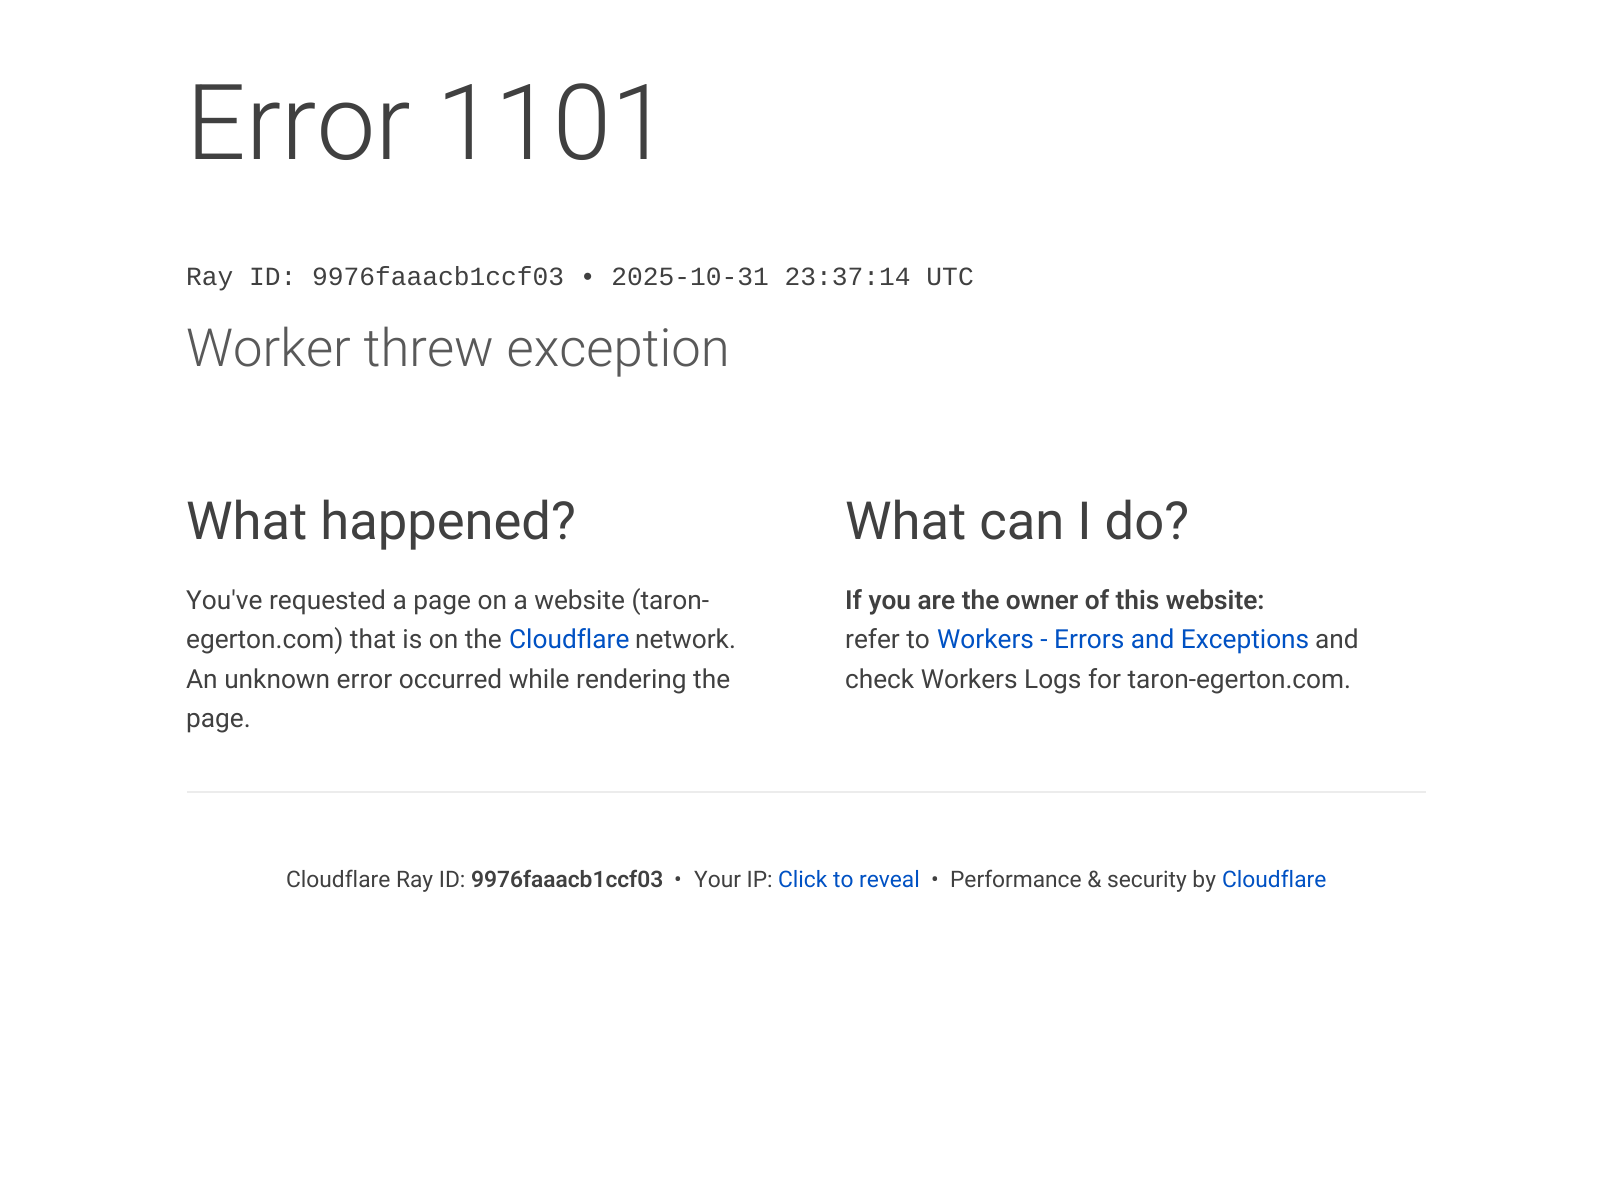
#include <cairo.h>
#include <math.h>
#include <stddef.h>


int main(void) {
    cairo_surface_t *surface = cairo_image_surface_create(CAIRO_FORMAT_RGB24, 1611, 1190);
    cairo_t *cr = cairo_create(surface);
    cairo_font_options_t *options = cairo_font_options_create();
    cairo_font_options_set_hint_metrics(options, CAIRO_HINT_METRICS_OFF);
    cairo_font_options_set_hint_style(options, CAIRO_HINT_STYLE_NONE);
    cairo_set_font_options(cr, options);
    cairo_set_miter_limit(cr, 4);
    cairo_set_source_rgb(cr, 1, 1, 1);
    cairo_paint(cr);
    cairo_select_font_face(cr, "Roboto Light", CAIRO_FONT_SLANT_NORMAL, CAIRO_FONT_WEIGHT_NORMAL);
    cairo_set_font_size(cr, 105);
    cairo_set_source_rgb(cr, 0.251, 0.251, 0.251);
    cairo_move_to(cr, 186, 159);
    cairo_show_text(cr, "Error 1101");
    cairo_select_font_face(cr, "Liberation Mono", CAIRO_FONT_SLANT_NORMAL, CAIRO_FONT_WEIGHT_NORMAL);
    cairo_set_font_size(cr, 26.25);
    cairo_move_to(cr, 186, 285);
    cairo_show_text(cr, "Ray ID: 9976faaacb1ccf03 • 2025-10-31 23:37:14 UTC");
    cairo_select_font_face(cr, "Roboto Light", CAIRO_FONT_SLANT_NORMAL, CAIRO_FONT_WEIGHT_NORMAL);
    cairo_set_font_size(cr, 52.5);
    cairo_set_source_rgb(cr, 0.349, 0.349, 0.349);
    cairo_move_to(cr, 186, 366);
    cairo_show_text(cr, "Worker threw exception");
    cairo_select_font_face(cr, "Roboto", CAIRO_FONT_SLANT_NORMAL, CAIRO_FONT_WEIGHT_NORMAL);
    cairo_set_source_rgb(cr, 0.251, 0.251, 0.251);
    cairo_move_to(cr, 186, 539);
    cairo_show_text(cr, "What happened?");
    cairo_set_font_size(cr, 26.25);
    cairo_move_to(cr, 186, 609);
    cairo_show_text(cr, "You've requested a page on a website (taron-");
    cairo_move_to(cr, 186, 648);
    cairo_show_text(cr, "egerton.com) that is on the");
    cairo_set_source_rgb(cr, 0, 0.318, 0.765);
    cairo_move_to(cr, 509, 648);
    cairo_show_text(cr, "Cloudflare");
    cairo_set_source_rgb(cr, 0.251, 0.251, 0.251);
    cairo_move_to(cr, 635, 648);
    cairo_show_text(cr, "network.");
    cairo_move_to(cr, 186, 688);
    cairo_show_text(cr, "An unknown error occurred while rendering the");
    cairo_move_to(cr, 186, 727);
    cairo_show_text(cr, "page.");
    cairo_set_font_size(cr, 52.5);
    cairo_move_to(cr, 845, 539);
    cairo_show_text(cr, "What can I do?");
    cairo_select_font_face(cr, "Roboto SemiBold", CAIRO_FONT_SLANT_NORMAL, CAIRO_FONT_WEIGHT_NORMAL);
    cairo_set_font_size(cr, 26.25);
    cairo_move_to(cr, 845, 609);
    cairo_show_text(cr, "If you are the owner of this website:");
    cairo_select_font_face(cr, "Roboto", CAIRO_FONT_SLANT_NORMAL, CAIRO_FONT_WEIGHT_NORMAL);
    cairo_move_to(cr, 845, 648);
    cairo_show_text(cr, "refer to");
    cairo_set_source_rgb(cr, 0, 0.318, 0.765);
    cairo_move_to(cr, 937, 648);
    cairo_show_text(cr, "Workers - Errors and Exceptions");
    cairo_set_source_rgb(cr, 0.251, 0.251, 0.251);
    cairo_move_to(cr, 1315, 648);
    cairo_show_text(cr, "and");
    cairo_move_to(cr, 845, 688);
    cairo_show_text(cr, "check Workers Logs for taron-egerton.com.");
    cairo_set_source_rgb(cr, 0.922, 0.922, 0.922);
    cairo_rectangle(cr, 187, 791, 1239, 2);
    cairo_fill(cr);
    cairo_set_font_size(cr, 22.75);
    cairo_set_source_rgb(cr, 0.251, 0.251, 0.251);
    cairo_move_to(cr, 286, 887);
    cairo_show_text(cr, "Cloudflare Ray ID:");
    cairo_select_font_face(cr, "Roboto SemiBold", CAIRO_FONT_SLANT_NORMAL, CAIRO_FONT_WEIGHT_NORMAL);
    cairo_move_to(cr, 471, 887);
    cairo_show_text(cr, "9976faaacb1ccf03");
    cairo_select_font_face(cr, "Roboto", CAIRO_FONT_SLANT_NORMAL, CAIRO_FONT_WEIGHT_NORMAL);
    cairo_move_to(cr, 674, 887);
    cairo_show_text(cr, "•");
    cairo_move_to(cr, 694, 887);
    cairo_show_text(cr, "Your IP:");
    cairo_set_source_rgb(cr, 0, 0.318, 0.765);
    cairo_move_to(cr, 778, 887);
    cairo_show_text(cr, "Click to reveal");
    cairo_set_source_rgb(cr, 0.251, 0.251, 0.251);
    cairo_move_to(cr, 931, 887);
    cairo_show_text(cr, "•");
    cairo_move_to(cr, 950, 887);
    cairo_show_text(cr, "Performance & security by");
    cairo_set_source_rgb(cr, 0, 0.318, 0.765);
    cairo_move_to(cr, 1222, 887);
    cairo_show_text(cr, "Cloudflare");
    cairo_surface_write_to_png(surface, "page.png");
    cairo_font_options_destroy(options);
    cairo_destroy(cr);
    cairo_surface_destroy(surface);
    return 0;
}
